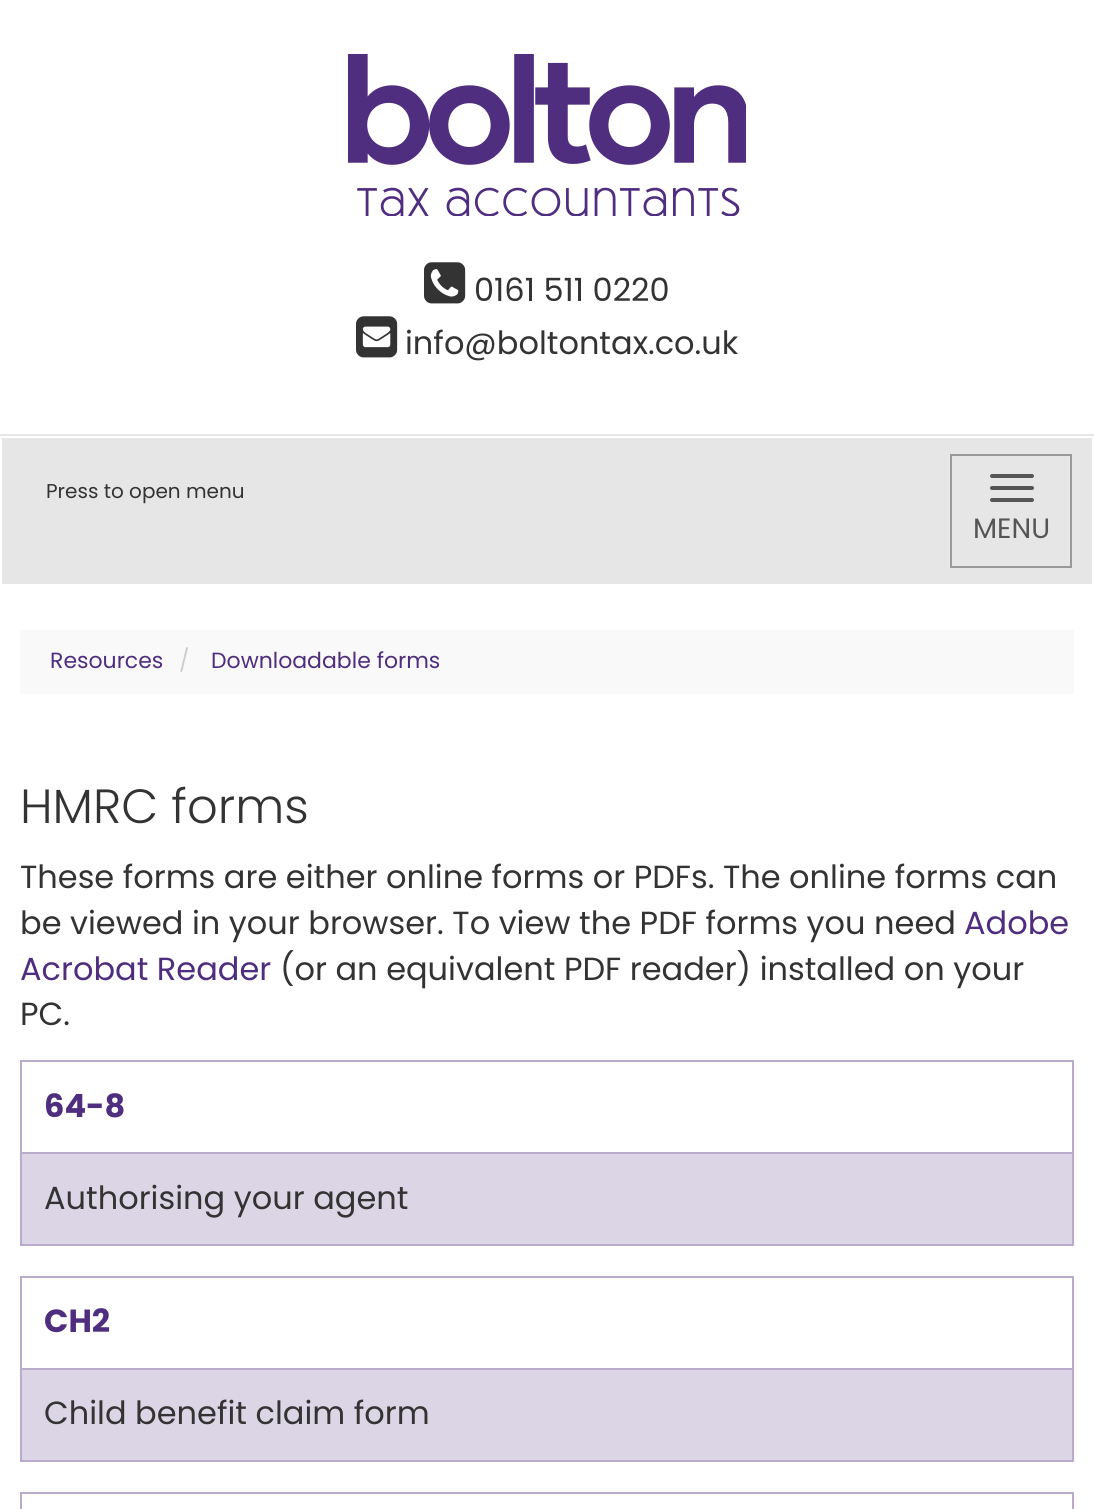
#include <cairo.h>
#include <math.h>
#include <stddef.h>


static void round_rect(cairo_t *cr, double x, double y, double w, double h, double r) {
    cairo_new_sub_path(cr);
    cairo_arc(cr, x + w - r, y + h - r, r, 0, M_PI / 2);
    cairo_arc(cr, x + r, y + h - r, r, M_PI / 2, M_PI);
    cairo_arc(cr, x + r, y + r, r, M_PI, 1.5 * M_PI);
    cairo_arc(cr, x + w - r, y + r, r, 1.5 * M_PI, 2 * M_PI);
    cairo_close_path(cr);
}

static void picture(cairo_t *cr, const char *path, double x, double y, double w, double h) {
    cairo_surface_t *image = cairo_image_surface_create_from_png(path);
    cairo_save(cr);
    cairo_set_source_surface(cr, image, x, y);
    cairo_rectangle(cr, x, y, w, h);
    cairo_fill(cr);
    cairo_restore(cr);
    cairo_surface_destroy(image);
}

int main(void) {
    cairo_surface_t *surface = cairo_image_surface_create(CAIRO_FORMAT_RGB24, 1094, 1509);
    cairo_t *cr = cairo_create(surface);
    cairo_font_options_t *options = cairo_font_options_create();
    cairo_font_options_set_hint_metrics(options, CAIRO_HINT_METRICS_OFF);
    cairo_font_options_set_hint_style(options, CAIRO_HINT_STYLE_NONE);
    cairo_set_font_options(cr, options);
    cairo_set_miter_limit(cr, 4);
    cairo_set_source_rgb(cr, 1, 1, 1);
    cairo_paint(cr);
    cairo_set_source_rgb(cr, 0.902, 0.902, 0.902);
    cairo_rectangle(cr, 0, 434, 1094, 2);
    cairo_fill(cr);
    picture(cr, "img1.png", 348, 54, 398, 162);
    picture(cr, "img2.png", 424, 262, 42, 42);
    cairo_select_font_face(cr, "Poppins", CAIRO_FONT_SLANT_NORMAL, CAIRO_FONT_WEIGHT_NORMAL);
    cairo_set_font_size(cr, 32);
    cairo_set_source_rgb(cr, 0.2, 0.2, 0.2);
    cairo_move_to(cr, 474, 301);
    cairo_show_text(cr, "0161 511 0220");
    picture(cr, "img3.png", 356, 316, 42, 42);
    cairo_move_to(cr, 405, 354);
    cairo_show_text(cr, "info@boltontax.co.uk");
    cairo_set_source_rgb(cr, 0.902, 0.902, 0.902);
    cairo_rectangle(cr, 2, 438, 1090, 146);
    cairo_fill(cr);
    cairo_set_font_size(cr, 20);
    cairo_set_source_rgb(cr, 0.2, 0.2, 0.2);
    cairo_move_to(cr, 46, 498);
    cairo_show_text(cr, "Press to open menu");
    cairo_rectangle(cr, 951, 455, 120, 112);
    cairo_set_source_rgb(cr, 0.6, 0.6, 0.6);
    cairo_stroke(cr);
    cairo_set_source_rgb(cr, 0.333, 0.333, 0.333);
    round_rect(cr, 990, 474, 44, 4, 2);
    cairo_fill(cr);
    round_rect(cr, 990, 486, 44, 4, 2);
    cairo_fill(cr);
    round_rect(cr, 990, 498, 44, 4, 2);
    cairo_fill(cr);
    cairo_set_font_size(cr, 28);
    cairo_move_to(cr, 973, 538);
    cairo_show_text(cr, "MENU");
    cairo_set_source_rgb(cr, 0.976, 0.976, 0.976);
    cairo_rectangle(cr, 20, 630, 1054, 64);
    cairo_fill(cr);
    cairo_set_font_size(cr, 22);
    cairo_set_source_rgb(cr, 0.31, 0.176, 0.498);
    cairo_move_to(cr, 50, 668);
    cairo_show_text(cr, "Resources");
    cairo_set_source_rgb(cr, 0.8, 0.8, 0.8);
    cairo_move_to(cr, 179, 668);
    cairo_show_text(cr, "/");
    cairo_set_source_rgb(cr, 0.31, 0.176, 0.498);
    cairo_move_to(cr, 211, 668);
    cairo_show_text(cr, "Downloadable forms");
    cairo_select_font_face(cr, "Poppins Light", CAIRO_FONT_SLANT_NORMAL, CAIRO_FONT_WEIGHT_NORMAL);
    cairo_set_font_size(cr, 48);
    cairo_set_source_rgb(cr, 0.2, 0.2, 0.2);
    cairo_move_to(cr, 20, 823);
    cairo_show_text(cr, "HMRC forms");
    cairo_select_font_face(cr, "Poppins", CAIRO_FONT_SLANT_NORMAL, CAIRO_FONT_WEIGHT_NORMAL);
    cairo_set_font_size(cr, 32);
    cairo_move_to(cr, 20, 888);
    cairo_show_text(cr, "These forms are either online forms or PDFs. The online forms can");
    cairo_move_to(cr, 20, 934);
    cairo_show_text(cr, "be viewed in your browser. To view the PDF forms you need");
    cairo_set_source_rgb(cr, 0.31, 0.176, 0.498);
    cairo_move_to(cr, 964, 934);
    cairo_show_text(cr, "Adobe");
    cairo_move_to(cr, 20, 980);
    cairo_show_text(cr, "Acrobat Reader");
    cairo_set_source_rgb(cr, 0.2, 0.2, 0.2);
    cairo_move_to(cr, 280, 980);
    cairo_show_text(cr, "(or an equivalent PDF reader) installed on your");
    cairo_move_to(cr, 20, 1025);
    cairo_show_text(cr, "PC.");
    cairo_rectangle(cr, 21, 1061, 1052, 92);
    cairo_set_source_rgb(cr, 0.725, 0.671, 0.8);
    cairo_stroke(cr);
    cairo_select_font_face(cr, "Poppins", CAIRO_FONT_SLANT_NORMAL, CAIRO_FONT_WEIGHT_BOLD);
    cairo_set_source_rgb(cr, 0.31, 0.176, 0.498);
    cairo_move_to(cr, 44, 1117);
    cairo_show_text(cr, "64-8");
    cairo_set_source_rgb(cr, 0.863, 0.835, 0.898);
    cairo_rectangle(cr, 22, 1154, 1050, 90);
    cairo_fill(cr);
    cairo_set_source_rgb(cr, 0.725, 0.671, 0.8);
    cairo_rectangle(cr, 1072, 1154, 2, 92);
    cairo_fill(cr);
    cairo_rectangle(cr, 20, 1244, 1054, 2);
    cairo_fill(cr);
    cairo_rectangle(cr, 20, 1154, 2, 92);
    cairo_fill(cr);
    cairo_select_font_face(cr, "Poppins", CAIRO_FONT_SLANT_NORMAL, CAIRO_FONT_WEIGHT_NORMAL);
    cairo_set_source_rgb(cr, 0.2, 0.2, 0.2);
    cairo_move_to(cr, 44, 1209);
    cairo_show_text(cr, "Authorising your agent");
    cairo_rectangle(cr, 21, 1277, 1052, 92);
    cairo_set_source_rgb(cr, 0.725, 0.671, 0.8);
    cairo_stroke(cr);
    cairo_select_font_face(cr, "Poppins", CAIRO_FONT_SLANT_NORMAL, CAIRO_FONT_WEIGHT_BOLD);
    cairo_set_source_rgb(cr, 0.31, 0.176, 0.498);
    cairo_move_to(cr, 44, 1332);
    cairo_show_text(cr, "CH2");
    cairo_set_source_rgb(cr, 0.863, 0.835, 0.898);
    cairo_rectangle(cr, 22, 1370, 1050, 90);
    cairo_fill(cr);
    cairo_set_source_rgb(cr, 0.725, 0.671, 0.8);
    cairo_rectangle(cr, 1072, 1370, 2, 92);
    cairo_fill(cr);
    cairo_rectangle(cr, 20, 1460, 1054, 2);
    cairo_fill(cr);
    cairo_rectangle(cr, 20, 1370, 2, 92);
    cairo_fill(cr);
    cairo_select_font_face(cr, "Poppins", CAIRO_FONT_SLANT_NORMAL, CAIRO_FONT_WEIGHT_NORMAL);
    cairo_set_source_rgb(cr, 0.2, 0.2, 0.2);
    cairo_move_to(cr, 44, 1424);
    cairo_show_text(cr, "Child benefit claim form");
    cairo_rectangle(cr, 21, 1493, 1052, 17);
    cairo_set_source_rgb(cr, 0.725, 0.671, 0.8);
    cairo_stroke(cr);
    cairo_surface_write_to_png(surface, "page.png");
    cairo_font_options_destroy(options);
    cairo_destroy(cr);
    cairo_surface_destroy(surface);
    return 0;
}
